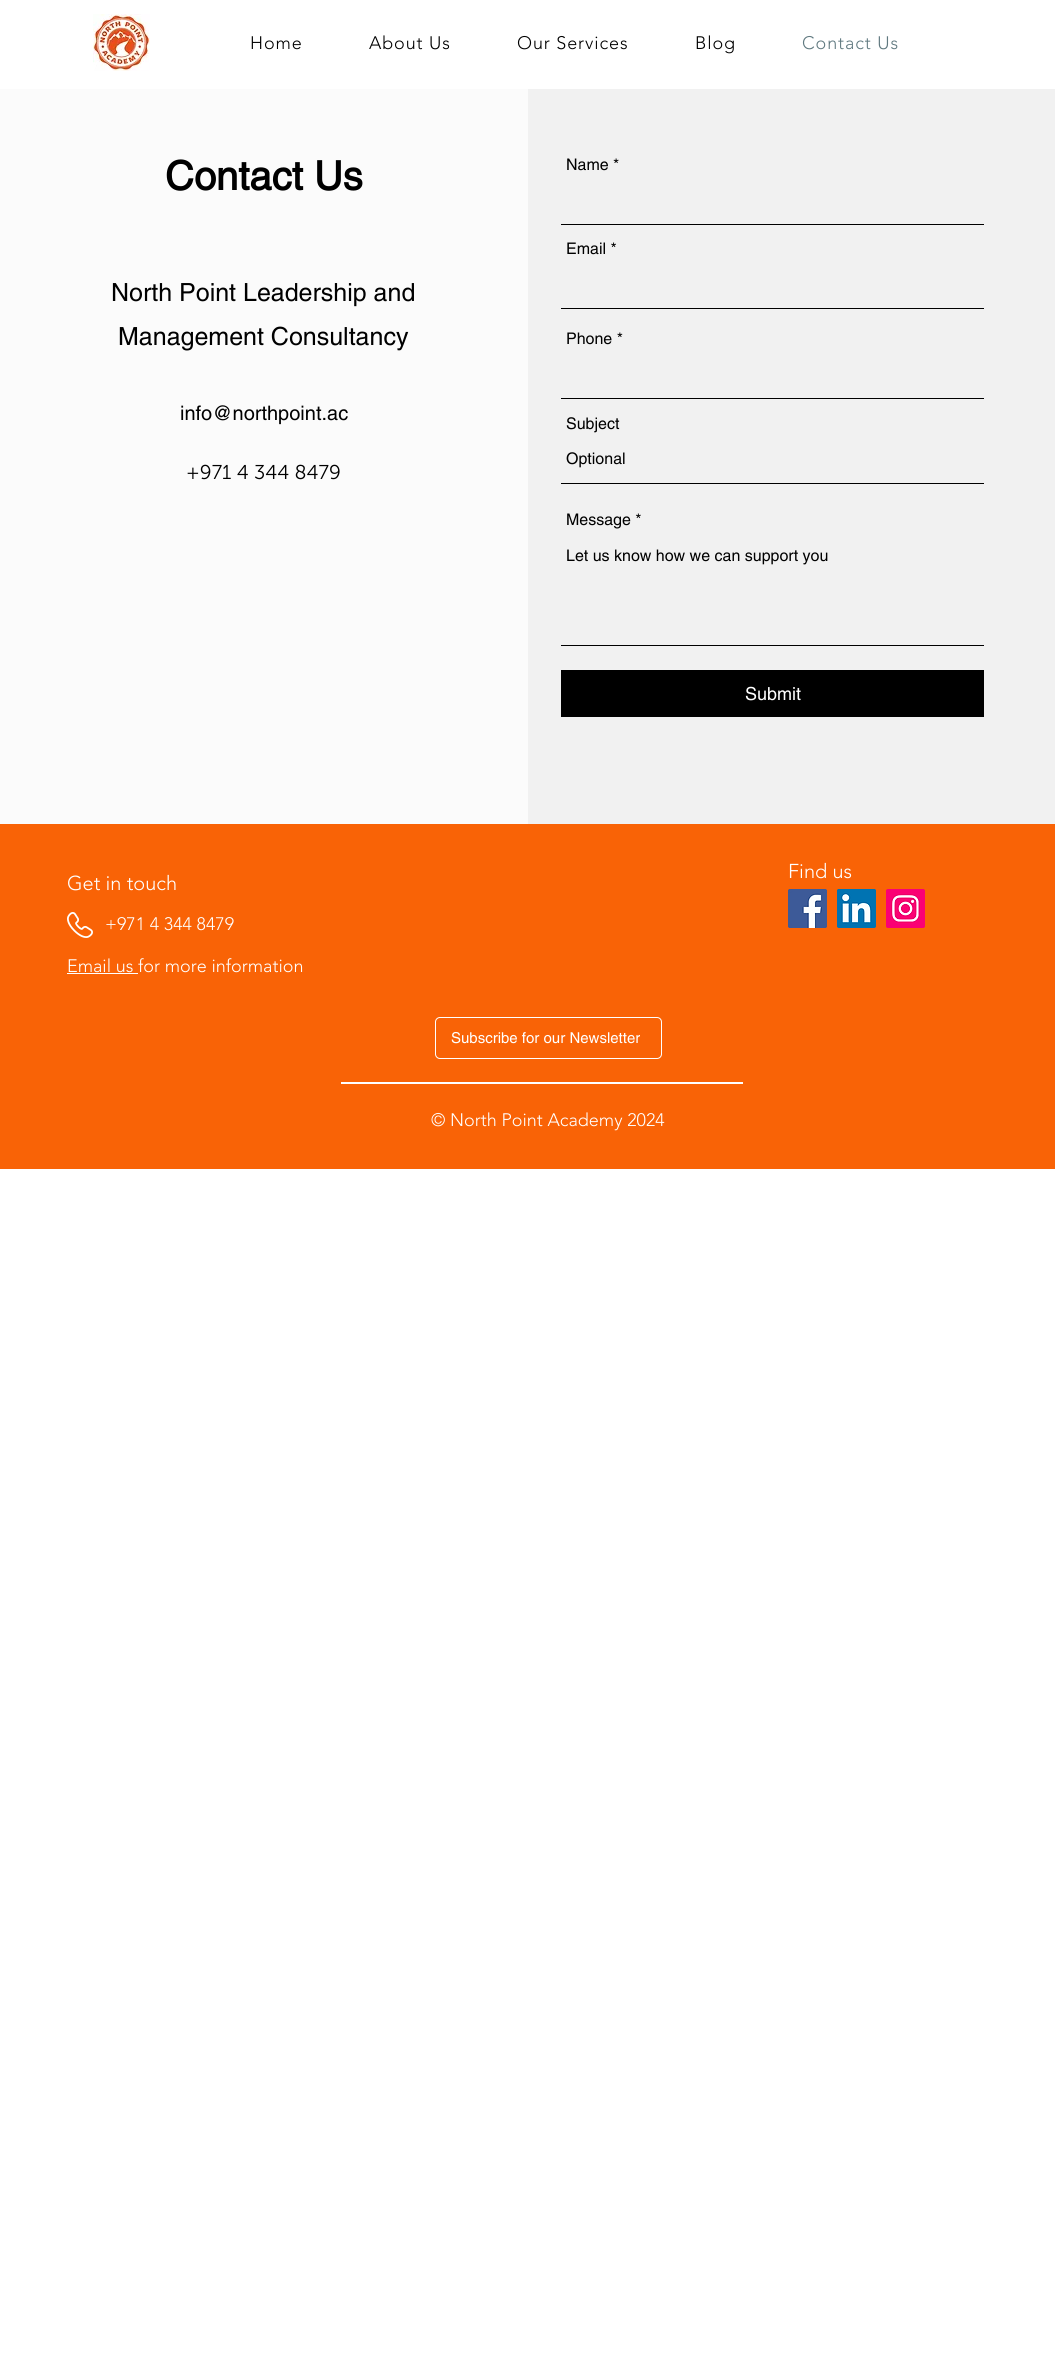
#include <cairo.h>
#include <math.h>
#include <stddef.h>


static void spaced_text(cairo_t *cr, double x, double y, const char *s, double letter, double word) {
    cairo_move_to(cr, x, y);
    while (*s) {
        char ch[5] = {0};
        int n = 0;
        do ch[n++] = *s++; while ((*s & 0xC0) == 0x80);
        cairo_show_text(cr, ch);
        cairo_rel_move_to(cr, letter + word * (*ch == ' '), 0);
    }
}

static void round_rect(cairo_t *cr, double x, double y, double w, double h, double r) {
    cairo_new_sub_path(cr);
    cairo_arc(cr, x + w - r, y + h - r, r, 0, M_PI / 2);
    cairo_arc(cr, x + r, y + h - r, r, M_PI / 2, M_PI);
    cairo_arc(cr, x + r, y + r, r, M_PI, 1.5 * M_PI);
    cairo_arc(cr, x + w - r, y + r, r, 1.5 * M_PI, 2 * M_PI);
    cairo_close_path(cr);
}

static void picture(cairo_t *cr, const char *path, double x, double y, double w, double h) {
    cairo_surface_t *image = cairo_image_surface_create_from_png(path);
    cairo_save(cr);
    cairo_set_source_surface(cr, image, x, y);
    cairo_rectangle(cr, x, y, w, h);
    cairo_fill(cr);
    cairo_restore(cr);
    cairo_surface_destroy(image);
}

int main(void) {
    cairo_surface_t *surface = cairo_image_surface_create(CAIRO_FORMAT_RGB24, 1055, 2372);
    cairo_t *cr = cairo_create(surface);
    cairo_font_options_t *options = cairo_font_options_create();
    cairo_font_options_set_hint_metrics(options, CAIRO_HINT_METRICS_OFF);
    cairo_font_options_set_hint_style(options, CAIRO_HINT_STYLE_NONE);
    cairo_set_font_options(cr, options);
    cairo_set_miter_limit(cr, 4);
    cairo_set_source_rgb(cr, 1, 1, 1);
    cairo_paint(cr);
    picture(cr, "img1.png", 93, 14, 57, 57);
    cairo_select_font_face(cr, "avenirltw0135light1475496 Light", CAIRO_FONT_SLANT_NORMAL, CAIRO_FONT_WEIGHT_NORMAL);
    cairo_set_font_size(cr, 18);
    cairo_set_source_rgb(cr, 0, 0, 0);
    spaced_text(cr, 250, 49, "Home", 0.9, 0);
    spaced_text(cr, 369, 49, "About Us", 0.9, 0);
    spaced_text(cr, 517, 49, "Our Services", 0.9, 0);
    spaced_text(cr, 695, 49, "Blog", 0.9, 0);
    cairo_set_source_rgb(cr, 0.376, 0.475, 0.502);
    spaced_text(cr, 802, 49, "Contact Us", 0.9, 0);
    cairo_set_source_rgb(cr, 0.945, 0.945, 0.945);
    cairo_rectangle(cr, 528, 89, 527, 735);
    cairo_fill(cr);
    cairo_set_source_rgb(cr, 0.984, 0.984, 0.984);
    cairo_rectangle(cr, 0, 89, 528, 735);
    cairo_fill(cr);
    cairo_select_font_face(cr, "helvetica", CAIRO_FONT_SLANT_NORMAL, CAIRO_FONT_WEIGHT_BOLD);
    cairo_set_font_size(cr, 40);
    cairo_set_source_rgb(cr, 0, 0, 0);
    cairo_move_to(cr, 165, 190);
    cairo_show_text(cr, "Contact Us");
    cairo_select_font_face(cr, "helvetica", CAIRO_FONT_SLANT_NORMAL, CAIRO_FONT_WEIGHT_NORMAL);
    cairo_set_font_size(cr, 25);
    cairo_move_to(cr, 111, 301);
    cairo_show_text(cr, "North Point Leadership and");
    cairo_move_to(cr, 118, 345);
    cairo_show_text(cr, "Management Consultancy");
    cairo_set_font_size(cr, 20);
    cairo_move_to(cr, 180, 420);
    cairo_show_text(cr, "info@northpoint.ac");
    cairo_select_font_face(cr, "Museo Sans Light", CAIRO_FONT_SLANT_NORMAL, CAIRO_FONT_WEIGHT_NORMAL);
    cairo_move_to(cr, 186, 479);
    cairo_show_text(cr, "+971 4 344 8479");
    cairo_select_font_face(cr, "helvetica", CAIRO_FONT_SLANT_NORMAL, CAIRO_FONT_WEIGHT_NORMAL);
    cairo_set_font_size(cr, 16);
    cairo_move_to(cr, 566, 170);
    cairo_show_text(cr, "Name *");
    cairo_rectangle(cr, 561, 224, 423, 1);
    cairo_fill(cr);
    cairo_move_to(cr, 566, 254);
    cairo_show_text(cr, "Email *");
    cairo_rectangle(cr, 561, 308, 423, 1);
    cairo_fill(cr);
    cairo_move_to(cr, 566, 344);
    cairo_show_text(cr, "Phone *");
    cairo_rectangle(cr, 561, 398, 423, 1);
    cairo_fill(cr);
    cairo_move_to(cr, 566, 429);
    cairo_show_text(cr, "Subject");
    cairo_rectangle(cr, 561, 483, 423, 1);
    cairo_fill(cr);
    cairo_move_to(cr, 566, 464);
    cairo_show_text(cr, "Optional");
    cairo_move_to(cr, 566, 525);
    cairo_show_text(cr, "Message *");
    cairo_rectangle(cr, 561, 645, 423, 1);
    cairo_fill(cr);
    cairo_move_to(cr, 566, 561);
    cairo_show_text(cr, "Let us know how we can support you");
    cairo_rectangle(cr, 561, 670, 423, 47);
    cairo_fill(cr);
    cairo_set_font_size(cr, 18);
    cairo_set_source_rgb(cr, 1, 1, 1);
    cairo_move_to(cr, 745, 700);
    cairo_show_text(cr, "Submit");
    cairo_set_source_rgb(cr, 0.973, 0.388, 0.027);
    cairo_rectangle(cr, 0, 824, 1055, 345);
    cairo_fill(cr);
    cairo_select_font_face(cr, "avenirltw0135light1475496 Light", CAIRO_FONT_SLANT_NORMAL, CAIRO_FONT_WEIGHT_NORMAL);
    cairo_set_font_size(cr, 20);
    cairo_set_source_rgb(cr, 1, 1, 1);
    cairo_move_to(cr, 788, 878);
    cairo_show_text(cr, "Find us");
    cairo_move_to(cr, 67, 890);
    cairo_show_text(cr, "Get in touch");
    picture(cr, "img2.png", 67, 912, 26, 26);
    cairo_set_font_size(cr, 18);
    cairo_move_to(cr, 105, 930);
    cairo_show_text(cr, "+971 4 344 8479");
    picture(cr, "img3.png", 788, 889, 39, 39);
    picture(cr, "img4.png", 837, 889, 39, 39);
    picture(cr, "img5.png", 886, 889, 39, 39);
    cairo_move_to(cr, 67, 972);
    cairo_show_text(cr, "Email us for more information");
    cairo_rectangle(cr, 67, 973, 71, 1);
    cairo_fill(cr);
    round_rect(cr, 435.5, 1017.5, 226, 41, 4.5);
    cairo_set_line_width(cr, 1);
    cairo_stroke(cr);
    cairo_select_font_face(cr, "helvetica", CAIRO_FONT_SLANT_NORMAL, CAIRO_FONT_WEIGHT_NORMAL);
    cairo_set_font_size(cr, 15);
    cairo_move_to(cr, 451, 1043);
    cairo_show_text(cr, "Subscribe for our Newsletter");
    cairo_rectangle(cr, 341, 1082, 402, 2);
    cairo_fill(cr);
    cairo_select_font_face(cr, "avenirltw0135light1475496 Light", CAIRO_FONT_SLANT_NORMAL, CAIRO_FONT_WEIGHT_NORMAL);
    cairo_set_font_size(cr, 18);
    cairo_move_to(cr, 431, 1126);
    cairo_show_text(cr, "© North Point Academy 2024");
    cairo_surface_write_to_png(surface, "page.png");
    cairo_font_options_destroy(options);
    cairo_destroy(cr);
    cairo_surface_destroy(surface);
    return 0;
}
